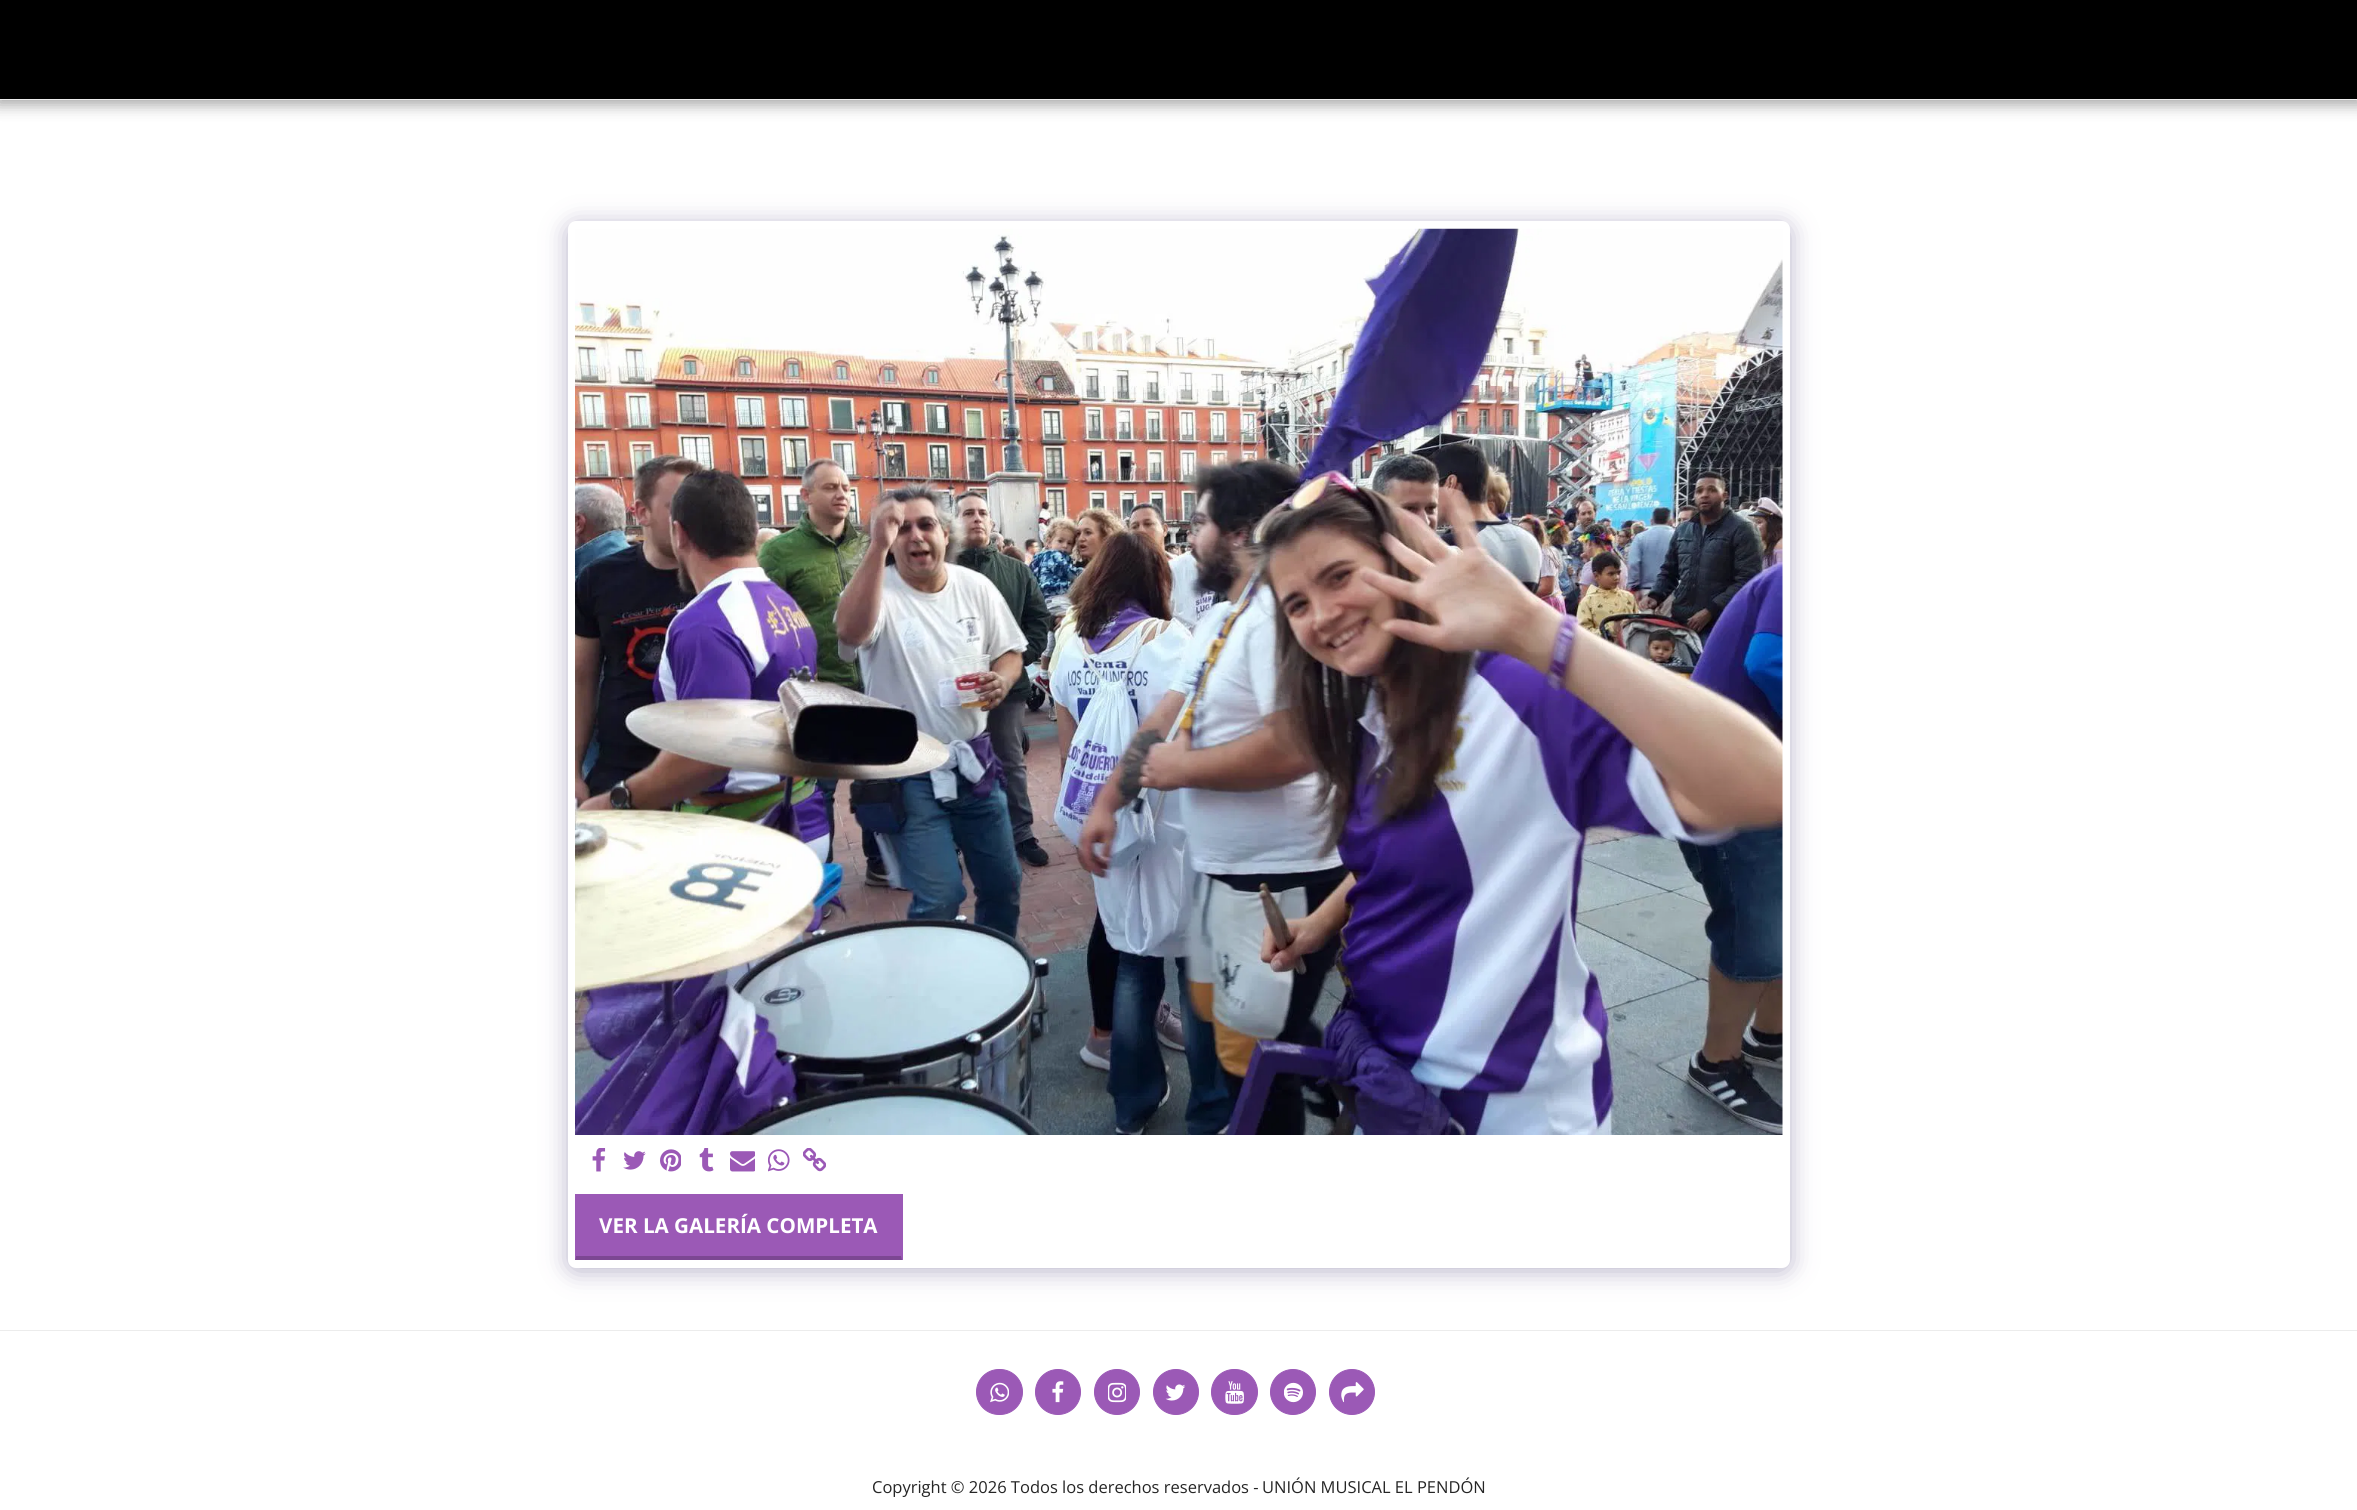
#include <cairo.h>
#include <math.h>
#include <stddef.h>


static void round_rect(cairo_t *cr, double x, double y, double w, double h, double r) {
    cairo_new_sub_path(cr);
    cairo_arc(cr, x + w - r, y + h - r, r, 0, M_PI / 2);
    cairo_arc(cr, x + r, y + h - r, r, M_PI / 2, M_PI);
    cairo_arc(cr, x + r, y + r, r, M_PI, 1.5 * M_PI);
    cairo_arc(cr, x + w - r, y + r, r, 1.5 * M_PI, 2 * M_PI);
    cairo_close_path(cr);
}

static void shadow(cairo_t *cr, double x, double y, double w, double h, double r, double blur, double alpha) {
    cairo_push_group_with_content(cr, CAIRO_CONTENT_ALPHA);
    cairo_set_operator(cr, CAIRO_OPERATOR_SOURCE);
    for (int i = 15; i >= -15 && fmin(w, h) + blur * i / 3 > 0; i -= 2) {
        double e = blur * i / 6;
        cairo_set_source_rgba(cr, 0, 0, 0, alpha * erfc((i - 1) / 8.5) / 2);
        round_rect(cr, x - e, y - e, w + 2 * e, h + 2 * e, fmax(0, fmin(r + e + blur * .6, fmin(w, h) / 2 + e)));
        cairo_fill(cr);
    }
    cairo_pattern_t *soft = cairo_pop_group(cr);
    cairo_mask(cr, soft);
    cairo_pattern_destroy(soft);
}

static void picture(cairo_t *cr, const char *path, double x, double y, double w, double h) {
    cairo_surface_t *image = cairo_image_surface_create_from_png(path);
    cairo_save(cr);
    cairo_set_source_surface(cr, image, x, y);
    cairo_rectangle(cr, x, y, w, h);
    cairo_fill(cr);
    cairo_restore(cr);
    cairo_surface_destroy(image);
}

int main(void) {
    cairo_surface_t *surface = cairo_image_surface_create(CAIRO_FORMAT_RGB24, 2357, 1510);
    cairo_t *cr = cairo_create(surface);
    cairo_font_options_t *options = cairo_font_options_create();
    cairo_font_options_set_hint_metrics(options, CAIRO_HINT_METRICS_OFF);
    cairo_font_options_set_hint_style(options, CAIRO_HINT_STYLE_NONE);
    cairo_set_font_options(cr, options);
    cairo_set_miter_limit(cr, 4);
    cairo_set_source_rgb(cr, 1, 1, 1);
    cairo_paint(cr);
    cairo_set_source_rgb(cr, 0, 0, 0);
    shadow(cr, -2, 0, 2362, 105, 0, 7.5, 0.35);
    cairo_set_source_rgb(cr, 0, 0, 0);
    cairo_rectangle(cr, 0, 0, 2357, 99);
    cairo_fill(cr);
    cairo_set_source_rgb(cr, 0.922, 0.922, 0.922);
    cairo_rectangle(cr, 0, 99, 2357, 1);
    cairo_fill(cr);
    cairo_set_source_rgb(cr, 0.302, 0.247, 0.478);
    shadow(cr, 568, 225, 1222, 1046, 8, 12.5, 0.4);
    cairo_set_source_rgb(cr, 1, 1, 1);
    round_rect(cr, 568, 221, 1222, 1047, 8);
    cairo_fill(cr);
    picture(cr, "img1.png", 575, 228, 1208, 907);
    picture(cr, "img2.png", 592, 1148, 14, 24);
    picture(cr, "img3.png", 623, 1151, 23, 19);
    picture(cr, "img4.png", 660, 1149, 21, 23);
    picture(cr, "img5.png", 699, 1148, 15, 24);
    picture(cr, "img6.png", 730, 1151, 25, 21);
    picture(cr, "img7.png", 768, 1149, 22, 23);
    picture(cr, "img8.png", 803, 1148, 23, 24);
    cairo_set_source_rgb(cr, 0.608, 0.349, 0.714);
    cairo_rectangle(cr, 575, 1194, 328, 66);
    cairo_fill(cr);
    cairo_set_source_rgb(cr, 0.486, 0.278, 0.573);
    cairo_new_path(cr);
    cairo_move_to(cr, 902, 1260);
    cairo_line_to(cr, 575, 1260);
    cairo_line_to(cr, 576, 1256);
    cairo_line_to(cr, 901, 1256);
    cairo_close_path(cr);
    cairo_fill(cr);
    cairo_set_source_rgb(cr, 0.608, 0.349, 0.714);
    cairo_new_path(cr);
    cairo_move_to(cr, 575, 1260);
    cairo_line_to(cr, 575, 1194);
    cairo_line_to(cr, 576, 1195);
    cairo_line_to(cr, 576, 1256);
    cairo_close_path(cr);
    cairo_fill(cr);
    cairo_select_font_face(cr, "Open Sans", CAIRO_FONT_SLANT_NORMAL, CAIRO_FONT_WEIGHT_BOLD);
    cairo_set_font_size(cr, 20.6);
    cairo_set_source_rgb(cr, 1, 1, 1);
    cairo_move_to(cr, 599, 1233);
    cairo_show_text(cr, "VER LA GALERÍA COMPLETA");
    cairo_set_source_rgb(cr, 0.922, 0.922, 0.922);
    cairo_rectangle(cr, 0, 1330, 2357, 1);
    cairo_fill(cr);
    cairo_set_source_rgb(cr, 0.608, 0.349, 0.714);
    round_rect(cr, 976.5, 1369.5, 46, 45, 22.5);
    cairo_fill_preserve(cr);
    cairo_set_line_width(cr, 1);
    cairo_stroke(cr);
    picture(cr, "img9.png", 990, 1382, 19, 21);
    cairo_arc(cr, 1058, 1392, 22.5, 0, 2 * M_PI);
    cairo_fill_preserve(cr);
    cairo_stroke(cr);
    picture(cr, "img10.png", 1052, 1381, 12, 22);
    cairo_arc(cr, 1117, 1392, 22.5, 0, 2 * M_PI);
    cairo_fill_preserve(cr);
    cairo_stroke(cr);
    picture(cr, "img11.png", 1108, 1382, 18, 21);
    cairo_arc(cr, 1176, 1392, 22.5, 0, 2 * M_PI);
    cairo_fill_preserve(cr);
    cairo_stroke(cr);
    picture(cr, "img12.png", 1165, 1384, 21, 17);
    round_rect(cr, 1211.5, 1369.5, 46, 45, 22.5);
    cairo_fill_preserve(cr);
    cairo_stroke(cr);
    picture(cr, "img13.png", 1225, 1381, 19, 23);
    cairo_arc(cr, 1293, 1392, 22.5, 0, 2 * M_PI);
    cairo_fill_preserve(cr);
    cairo_stroke(cr);
    picture(cr, "img14.png", 1284, 1382, 19, 21);
    cairo_arc(cr, 1352, 1392, 22.5, 0, 2 * M_PI);
    cairo_fill_preserve(cr);
    cairo_stroke(cr);
    picture(cr, "img15.png", 1341, 1382, 23, 21);
    cairo_select_font_face(cr, "Open Sans", CAIRO_FONT_SLANT_NORMAL, CAIRO_FONT_WEIGHT_NORMAL);
    cairo_set_font_size(cr, 16.5);
    cairo_set_source_rgb(cr, 0.145, 0.145, 0.145);
    cairo_move_to(cr, 872, 1493);
    cairo_show_text(cr, "Copyright © 2026 Todos los derechos reservados -");
    cairo_move_to(cr, 1262, 1493);
    cairo_show_text(cr, "UNIÓN MUSICAL EL PENDÓN");
    cairo_surface_write_to_png(surface, "page.png");
    cairo_font_options_destroy(options);
    cairo_destroy(cr);
    cairo_surface_destroy(surface);
    return 0;
}
